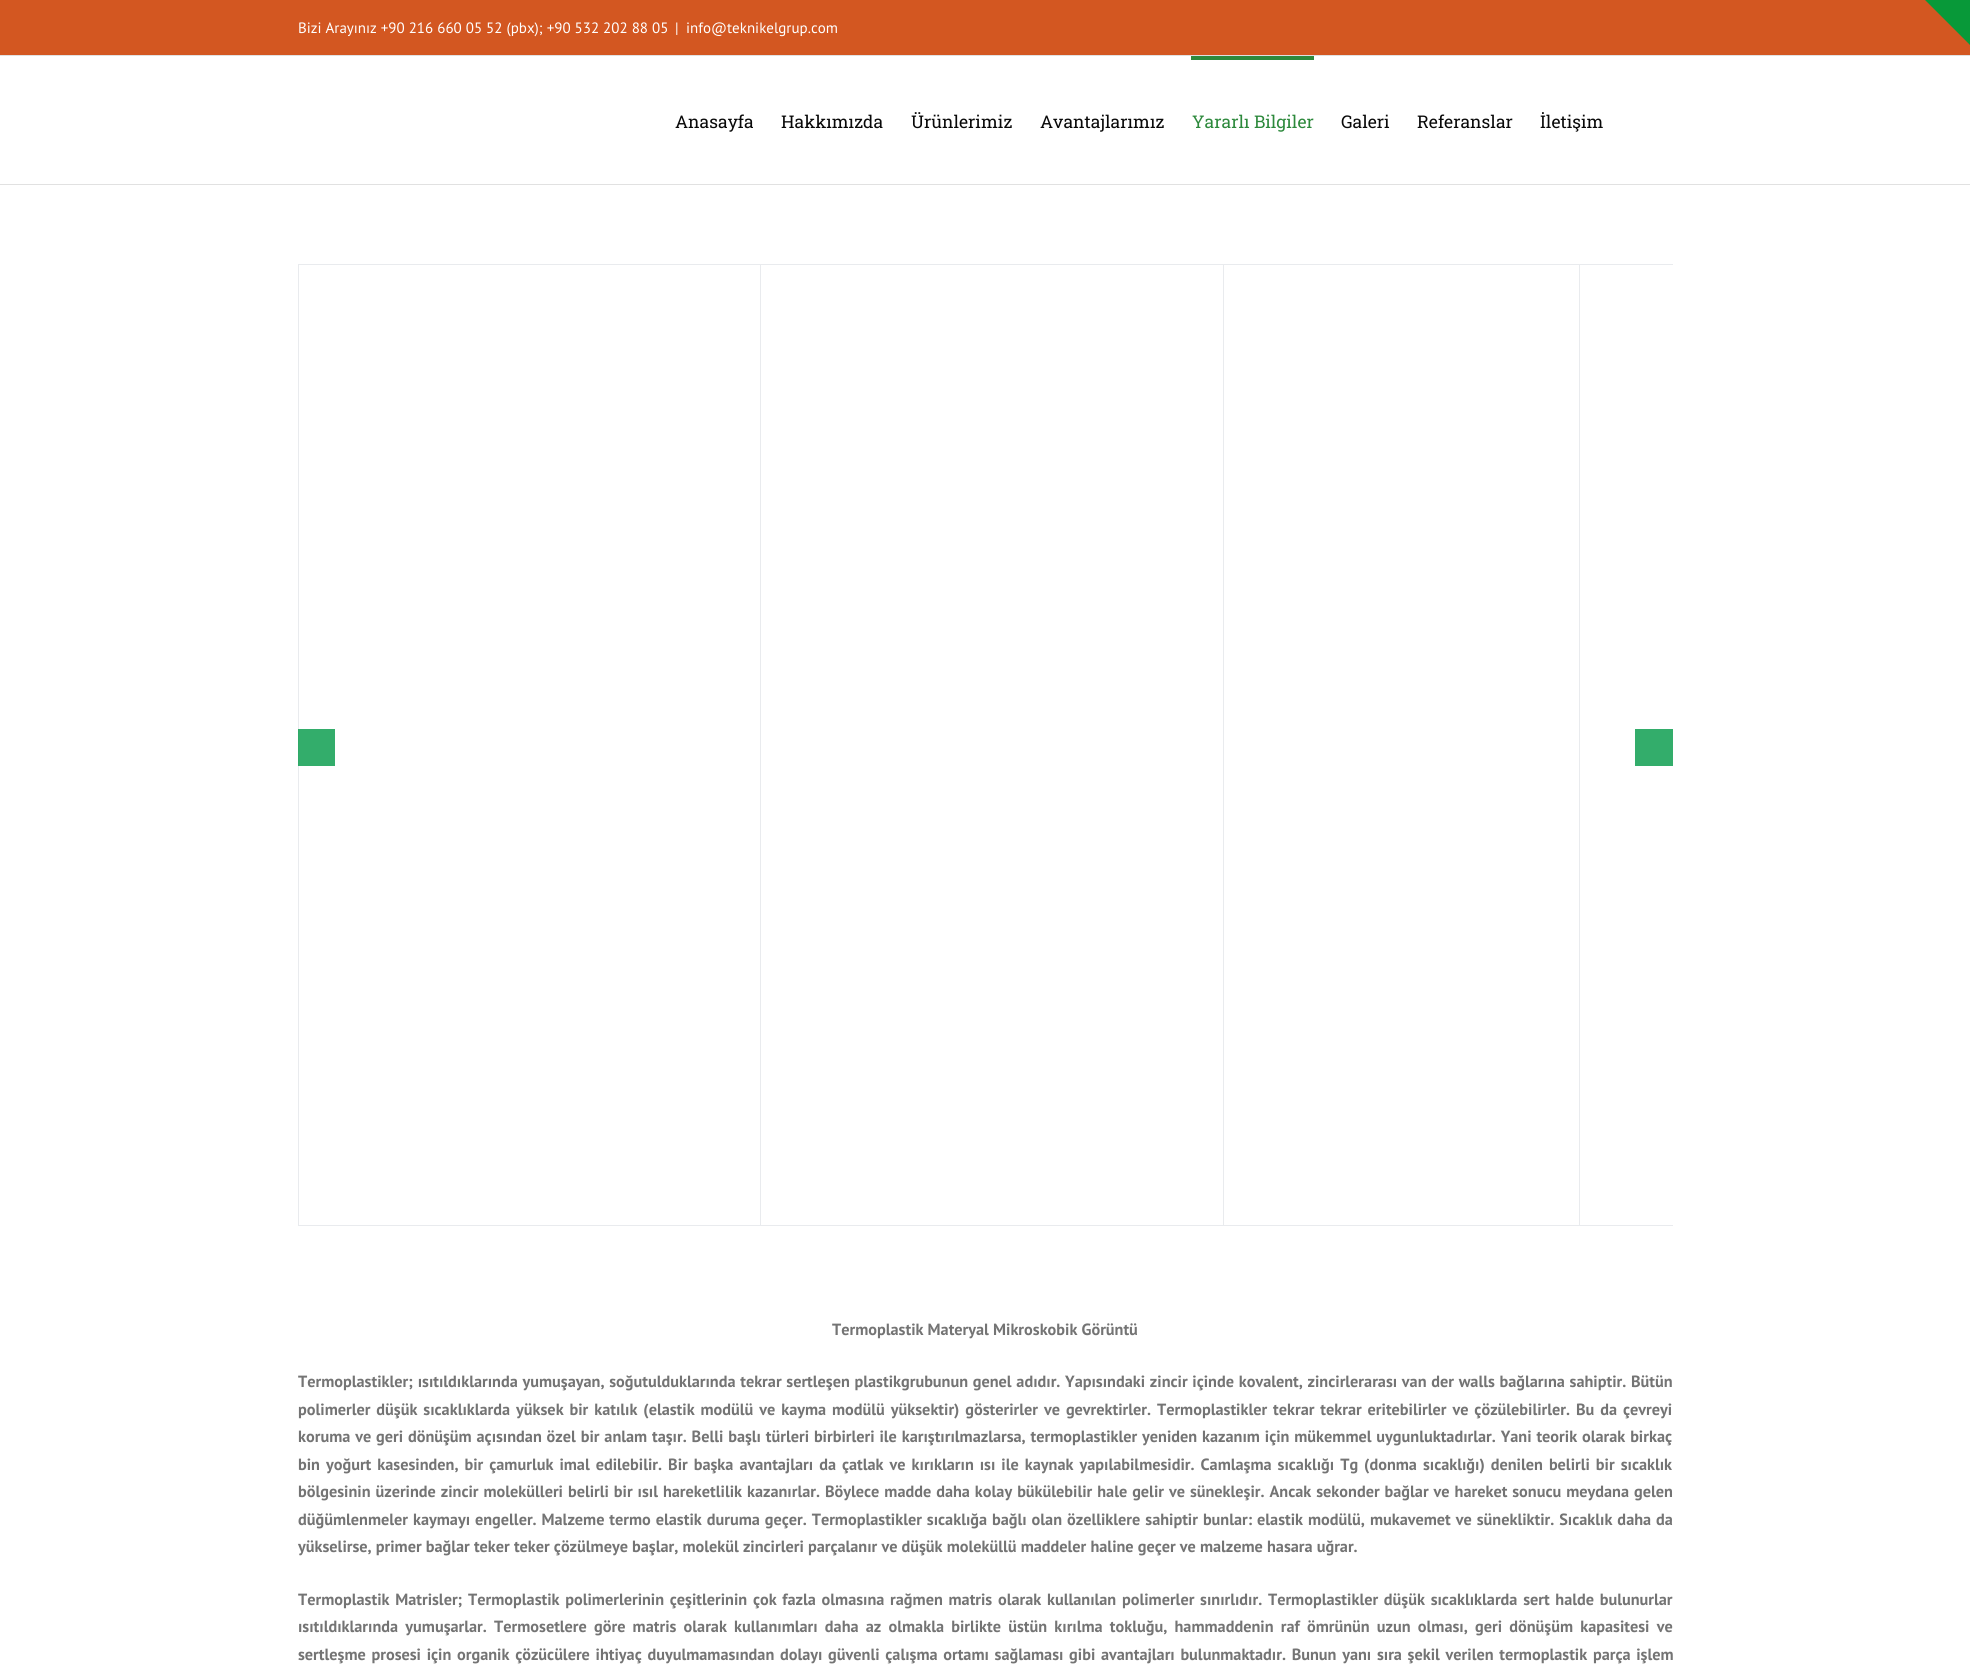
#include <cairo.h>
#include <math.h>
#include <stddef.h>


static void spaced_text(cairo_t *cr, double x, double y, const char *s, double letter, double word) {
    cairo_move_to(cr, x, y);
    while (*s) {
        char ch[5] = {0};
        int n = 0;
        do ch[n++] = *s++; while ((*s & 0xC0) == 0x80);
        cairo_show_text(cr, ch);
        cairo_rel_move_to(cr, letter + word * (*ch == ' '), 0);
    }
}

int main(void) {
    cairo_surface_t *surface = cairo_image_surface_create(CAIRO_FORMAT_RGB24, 1970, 1666);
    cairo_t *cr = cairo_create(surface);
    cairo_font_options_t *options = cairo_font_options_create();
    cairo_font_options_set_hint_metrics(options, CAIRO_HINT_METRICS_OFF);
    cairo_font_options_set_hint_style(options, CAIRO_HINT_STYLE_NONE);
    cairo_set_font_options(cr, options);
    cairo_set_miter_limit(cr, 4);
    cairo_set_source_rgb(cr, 1, 1, 1);
    cairo_paint(cr);
    cairo_set_source_rgb(cr, 0.827, 0.341, 0.129);
    cairo_rectangle(cr, 0, 0, 1970, 55);
    cairo_fill(cr);
    cairo_set_source_rgb(cr, 0.882, 0.882, 0.882);
    cairo_rectangle(cr, 0, 55, 1970, 1);
    cairo_fill(cr);
    cairo_select_font_face(cr, "PT Sans", CAIRO_FONT_SLANT_NORMAL, CAIRO_FONT_WEIGHT_NORMAL);
    cairo_set_font_size(cr, 15);
    cairo_set_source_rgb(cr, 1, 1, 1);
    cairo_move_to(cr, 298, 33);
    cairo_show_text(cr, "Bizi Arayınız +90 216 660 05 52 (pbx); +90 532 202 88 05");
    cairo_move_to(cr, 675, 33);
    cairo_show_text(cr, "|");
    cairo_move_to(cr, 686, 33);
    cairo_show_text(cr, "info@teknikelgrup.com");
    cairo_set_source_rgb(cr, 0.882, 0.882, 0.882);
    cairo_rectangle(cr, 0, 184, 1970, 1);
    cairo_fill(cr);
    cairo_select_font_face(cr, "Roboto Slab", CAIRO_FONT_SLANT_NORMAL, CAIRO_FONT_WEIGHT_NORMAL);
    cairo_set_font_size(cr, 17.5);
    cairo_set_source_rgb(cr, 0.039, 0.039, 0.039);
    cairo_move_to(cr, 675, 128);
    cairo_show_text(cr, "Anasayfa");
    cairo_move_to(cr, 781, 128);
    cairo_show_text(cr, "Hakkımızda");
    cairo_move_to(cr, 911, 128);
    cairo_show_text(cr, "Ürünlerimiz");
    cairo_move_to(cr, 1040, 128);
    cairo_show_text(cr, "Avantajlarımız");
    cairo_set_source_rgb(cr, 0.176, 0.537, 0.235);
    cairo_rectangle(cr, 1191, 56, 123, 4);
    cairo_fill(cr);
    cairo_move_to(cr, 1192, 128);
    cairo_show_text(cr, "Yararlı Bilgiler");
    cairo_set_source_rgb(cr, 0.039, 0.039, 0.039);
    cairo_move_to(cr, 1341, 128);
    cairo_show_text(cr, "Galeri");
    cairo_move_to(cr, 1417, 128);
    cairo_show_text(cr, "Referanslar");
    cairo_move_to(cr, 1540, 128);
    cairo_show_text(cr, "İletişim");
    cairo_set_source_rgb(cr, 0.035, 0.6, 0.224);
    cairo_new_path(cr);
    cairo_move_to(cr, 1925, 0);
    cairo_line_to(cr, 1970, 0);
    cairo_line_to(cr, 1970, 45);
    cairo_close_path(cr);
    cairo_fill(cr);
    cairo_rectangle(cr, 298.5, 264.5, 1281, 961);
    cairo_set_source_rgb(cr, 0.914, 0.918, 0.933);
    cairo_set_line_width(cr, 1);
    cairo_stroke(cr);
    cairo_save(cr);
    cairo_rectangle(cr, 298, 254, 1375, 987);
    cairo_clip(cr);
    cairo_rectangle(cr, 760.5, 264.5, 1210, 961);
    cairo_stroke(cr);
    cairo_rectangle(cr, 1223.5, 264.5, 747, 961);
    cairo_stroke(cr);
    cairo_restore(cr);
    cairo_set_source_rgba(cr, 0, 0.596, 0.275, 0.8);
    cairo_rectangle(cr, 298, 729, 37, 37);
    cairo_fill(cr);
    cairo_set_source_rgb(cr, 0.2, 0.678, 0.42);
    cairo_rectangle(cr, 1635, 729, 38, 37);
    cairo_fill(cr);
    cairo_select_font_face(cr, "PT Sans", CAIRO_FONT_SLANT_NORMAL, CAIRO_FONT_WEIGHT_BOLD);
    cairo_set_font_size(cr, 16.25);
    cairo_set_source_rgb(cr, 0.455, 0.455, 0.455);
    cairo_move_to(cr, 832, 1335);
    cairo_show_text(cr, "Termoplastik Materyal Mikroskobik Görüntü");
    spaced_text(cr, 298, 1387, "Termoplastikler; ısıtıldıklarında yumuşayan, soğutulduklarında tekrar sertleşen plastikgrubunun genel adıdır. Yapısındaki zincir içinde kovalent, zincirlerarası van der walls bağlarına sahiptir. Bütün", 0, 0.6);
    spaced_text(cr, 298, 1415, "polimerler düşük sıcaklıklarda yüksek bir katılık (elastik modülü ve kayma modülü yüksektir) gösterirler ve gevrektirler. Termoplastikler tekrar tekrar eritebilirler ve çözülebilirler. Bu da çevreyi", 0, 1.8);
    spaced_text(cr, 298, 1442, "koruma ve geri dönüşüm açısından özel bir anlam taşır. Belli başlı türleri birbirleri ile karıştırılmazlarsa, termoplastikler yeniden kazanım için mükemmel uygunluktadırlar. Yani teorik olarak birkaç", 0, 0.75);
    spaced_text(cr, 298, 1470, "bin yoğurt kasesinden, bir çamurluk imal edilebilir. Bir başka avantajları da çatlak ve kırıkların ısı ile kaynak yapılabilmesidir. Camlaşma sıcaklığı Tg (donma sıcaklığı) denilen belirli bir sıcaklık", 0, 1.9);
    spaced_text(cr, 298, 1497, "bölgesinin üzerinde zincir molekülleri belirli bir ısıl hareketlilik kazanırlar. Böylece madde daha kolay bükülebilir hale gelir ve sünekleşir. Ancak sekonder bağlar ve hareket sonucu meydana gelen", 0, 0.85);
    spaced_text(cr, 298, 1525, "düğümlenmeler kaymayı engeller. Malzeme termo elastik duruma geçer. Termoplastikler sıcaklığa bağlı olan özelliklere sahiptir bunlar: elastik modülü, mukavemet ve sünekliktir. Sıcaklık daha da", 0, 0.85);
    cairo_move_to(cr, 298, 1552);
    cairo_show_text(cr, "yükselirse, primer bağlar teker teker çözülmeye başlar, molekül zincirleri parçalanır ve düşük moleküllü maddeler haline geçer ve malzeme hasara uğrar.");
    spaced_text(cr, 298, 1605, "Termoplastik Matrisler; Termoplastik polimerlerinin çeşitlerinin çok fazla olmasına rağmen matris olarak kullanılan polimerler sınırlıdır. Termoplastikler düşük sıcaklıklarda sert halde bulunurlar", 0, 1.6);
    spaced_text(cr, 298, 1632, "ısıtıldıklarında yumuşarlar. Termosetlere göre matris olarak kullanımları daha az olmakla birlikte üstün kırılma tokluğu, hammaddenin raf ömrünün uzun olması, geri dönüşüm kapasitesi ve", 0, 3.1);
    spaced_text(cr, 298, 1660, "sertleşme prosesi için organik çözücülere ihtiyaç duyulmamasından dolayı güvenli çalışma ortamı sağlaması gibi avantajları bulunmaktadır. Bunun yanı sıra şekil verilen termoplastik parça işlem", 0, 1.6);
    cairo_surface_write_to_png(surface, "page.png");
    cairo_font_options_destroy(options);
    cairo_destroy(cr);
    cairo_surface_destroy(surface);
    return 0;
}
